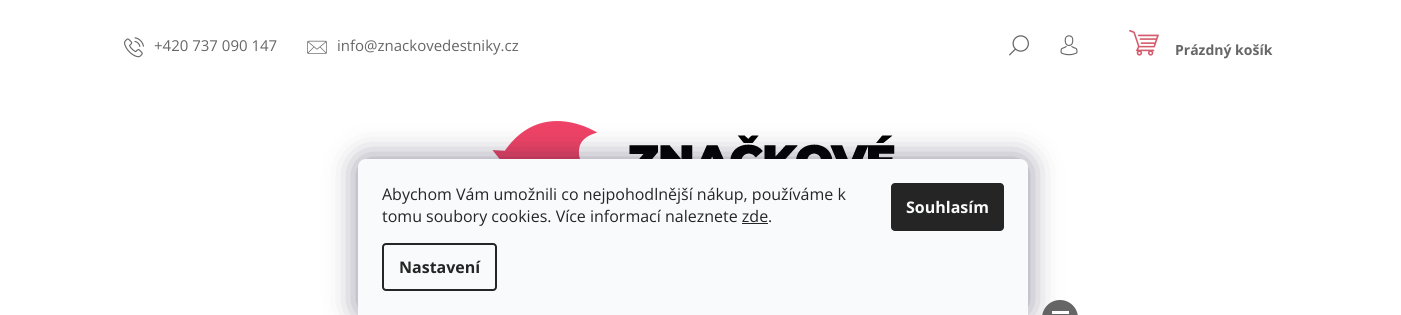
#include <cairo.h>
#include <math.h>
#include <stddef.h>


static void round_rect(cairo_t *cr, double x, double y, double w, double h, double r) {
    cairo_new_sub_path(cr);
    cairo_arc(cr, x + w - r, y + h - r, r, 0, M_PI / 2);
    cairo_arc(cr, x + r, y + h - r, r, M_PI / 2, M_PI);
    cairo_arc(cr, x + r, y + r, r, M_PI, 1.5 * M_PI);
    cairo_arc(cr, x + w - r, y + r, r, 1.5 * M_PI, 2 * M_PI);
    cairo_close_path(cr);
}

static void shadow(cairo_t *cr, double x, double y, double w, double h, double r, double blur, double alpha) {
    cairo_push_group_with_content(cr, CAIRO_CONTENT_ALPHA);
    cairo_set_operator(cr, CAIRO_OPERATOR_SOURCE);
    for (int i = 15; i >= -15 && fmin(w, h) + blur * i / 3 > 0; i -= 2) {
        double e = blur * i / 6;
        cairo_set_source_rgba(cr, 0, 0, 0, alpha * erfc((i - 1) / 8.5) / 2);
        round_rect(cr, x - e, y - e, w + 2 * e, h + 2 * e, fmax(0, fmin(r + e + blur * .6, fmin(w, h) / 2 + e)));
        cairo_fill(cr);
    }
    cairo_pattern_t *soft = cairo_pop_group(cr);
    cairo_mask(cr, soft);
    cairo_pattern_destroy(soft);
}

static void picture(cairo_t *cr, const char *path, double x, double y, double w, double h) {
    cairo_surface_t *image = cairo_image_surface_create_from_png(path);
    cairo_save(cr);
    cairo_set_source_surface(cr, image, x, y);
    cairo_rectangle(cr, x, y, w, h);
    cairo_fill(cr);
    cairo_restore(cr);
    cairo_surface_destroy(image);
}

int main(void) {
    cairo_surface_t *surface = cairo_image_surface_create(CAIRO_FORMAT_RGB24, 1401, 315);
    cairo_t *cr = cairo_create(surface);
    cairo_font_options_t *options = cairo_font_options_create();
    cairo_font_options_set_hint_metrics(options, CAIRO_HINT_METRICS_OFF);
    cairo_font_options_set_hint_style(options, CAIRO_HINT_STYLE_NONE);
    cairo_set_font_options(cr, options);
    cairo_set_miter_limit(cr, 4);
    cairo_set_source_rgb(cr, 1, 1, 1);
    cairo_paint(cr);
    picture(cr, "img1.png", 124, 37, 20, 21);
    cairo_select_font_face(cr, "Open Sans", CAIRO_FONT_SLANT_NORMAL, CAIRO_FONT_WEIGHT_NORMAL);
    cairo_set_font_size(cr, 15);
    cairo_set_source_rgb(cr, 0.4, 0.4, 0.4);
    cairo_move_to(cr, 154, 51);
    cairo_show_text(cr, "+420 737 090 147");
    picture(cr, "img2.png", 307, 40, 20, 14);
    cairo_move_to(cr, 337, 51);
    cairo_show_text(cr, "info@znackovedestniky.cz");
    picture(cr, "img3.png", 1009, 35, 20, 21);
    picture(cr, "img4.png", 1060, 35, 18, 21);
    picture(cr, "img5.png", 1129, 30, 30, 26);
    cairo_select_font_face(cr, "Open Sans", CAIRO_FONT_SLANT_NORMAL, CAIRO_FONT_WEIGHT_BOLD);
    cairo_set_font_size(cr, 14);
    cairo_move_to(cr, 1175, 55);
    cairo_show_text(cr, "Prázdný košík");
    picture(cr, "img6.png", 492, 121, 403, 38);
    round_rect(cr, 1042, 300, 36, 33, 18);
    cairo_fill(cr);
    cairo_set_source_rgb(cr, 1, 1, 1);
    cairo_rectangle(cr, 1052, 311, 17, 3);
    cairo_fill(cr);
    cairo_set_source_rgb(cr, 0.106, 0.098, 0.224);
    shadow(cr, 358, 159, 670, 156, 8, 15, 0.5);
    cairo_set_source_rgb(cr, 0.973, 0.98, 0.984);
    cairo_new_path(cr);
    cairo_move_to(cr, 366, 159);
    cairo_line_to(cr, 1020, 159);
    cairo_curve_to(cr, 1024.5, 159, 1028, 162.5, 1028, 167);
    cairo_line_to(cr, 1028, 315);
    cairo_line_to(cr, 358, 315);
    cairo_line_to(cr, 358, 167);
    cairo_curve_to(cr, 358, 162.5, 361.5, 159, 366, 159);
    cairo_close_path(cr);
    cairo_fill(cr);
    cairo_select_font_face(cr, "Open Sans", CAIRO_FONT_SLANT_NORMAL, CAIRO_FONT_WEIGHT_NORMAL);
    cairo_set_font_size(cr, 16);
    cairo_set_source_rgb(cr, 0.145, 0.145, 0.145);
    cairo_move_to(cr, 382, 200);
    cairo_show_text(cr, "Abychom Vám umožnili co nejpohodlnější nákup, používáme k");
    cairo_move_to(cr, 382, 222);
    cairo_show_text(cr, "tomu soubory cookies. Více informací naleznete zde.");
    cairo_rectangle(cr, 742, 223, 26, 1);
    cairo_fill(cr);
    round_rect(cr, 383, 244, 113, 46, 3);
    cairo_stroke(cr);
    cairo_select_font_face(cr, "Open Sans", CAIRO_FONT_SLANT_NORMAL, CAIRO_FONT_WEIGHT_BOLD);
    cairo_move_to(cr, 399, 273);
    cairo_show_text(cr, "Nastavení");
    round_rect(cr, 891, 183, 113, 48, 4);
    cairo_fill(cr);
    cairo_set_source_rgb(cr, 0.973, 0.98, 0.984);
    cairo_move_to(cr, 906, 213);
    cairo_show_text(cr, "Souhlasím");
    cairo_surface_write_to_png(surface, "page.png");
    cairo_font_options_destroy(options);
    cairo_destroy(cr);
    cairo_surface_destroy(surface);
    return 0;
}
